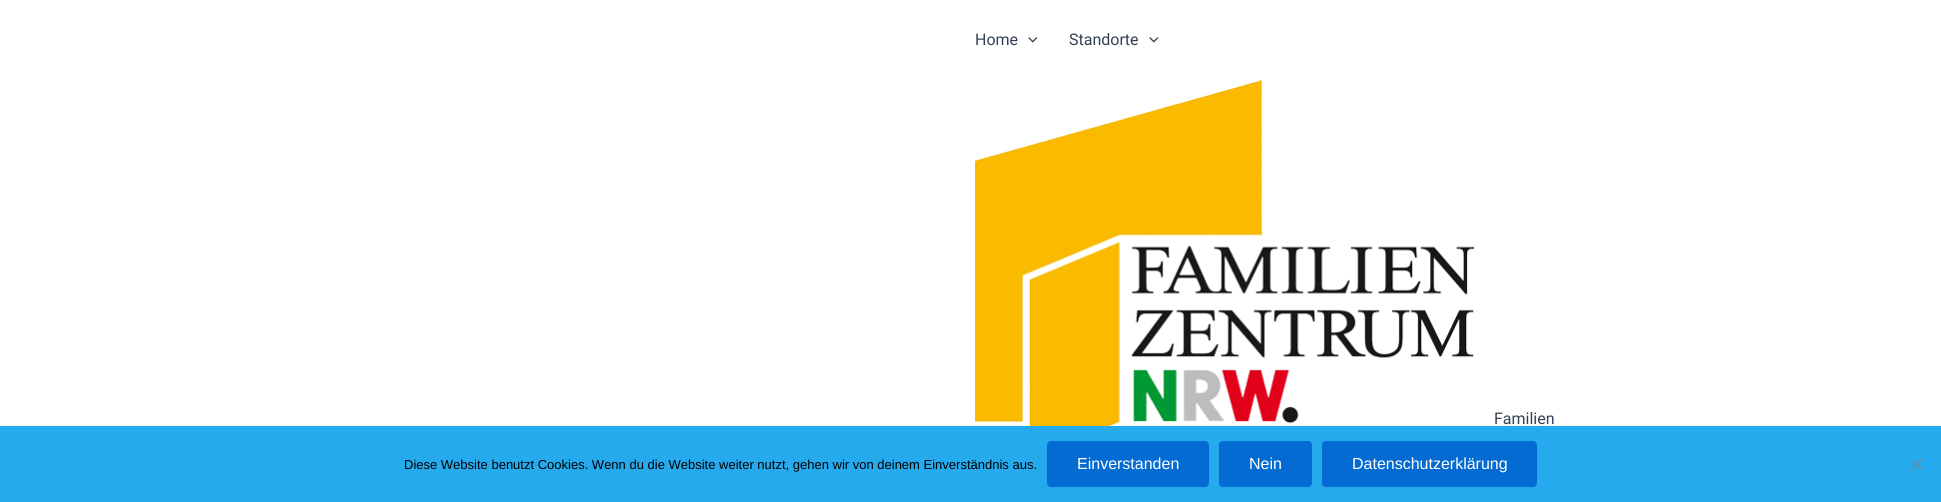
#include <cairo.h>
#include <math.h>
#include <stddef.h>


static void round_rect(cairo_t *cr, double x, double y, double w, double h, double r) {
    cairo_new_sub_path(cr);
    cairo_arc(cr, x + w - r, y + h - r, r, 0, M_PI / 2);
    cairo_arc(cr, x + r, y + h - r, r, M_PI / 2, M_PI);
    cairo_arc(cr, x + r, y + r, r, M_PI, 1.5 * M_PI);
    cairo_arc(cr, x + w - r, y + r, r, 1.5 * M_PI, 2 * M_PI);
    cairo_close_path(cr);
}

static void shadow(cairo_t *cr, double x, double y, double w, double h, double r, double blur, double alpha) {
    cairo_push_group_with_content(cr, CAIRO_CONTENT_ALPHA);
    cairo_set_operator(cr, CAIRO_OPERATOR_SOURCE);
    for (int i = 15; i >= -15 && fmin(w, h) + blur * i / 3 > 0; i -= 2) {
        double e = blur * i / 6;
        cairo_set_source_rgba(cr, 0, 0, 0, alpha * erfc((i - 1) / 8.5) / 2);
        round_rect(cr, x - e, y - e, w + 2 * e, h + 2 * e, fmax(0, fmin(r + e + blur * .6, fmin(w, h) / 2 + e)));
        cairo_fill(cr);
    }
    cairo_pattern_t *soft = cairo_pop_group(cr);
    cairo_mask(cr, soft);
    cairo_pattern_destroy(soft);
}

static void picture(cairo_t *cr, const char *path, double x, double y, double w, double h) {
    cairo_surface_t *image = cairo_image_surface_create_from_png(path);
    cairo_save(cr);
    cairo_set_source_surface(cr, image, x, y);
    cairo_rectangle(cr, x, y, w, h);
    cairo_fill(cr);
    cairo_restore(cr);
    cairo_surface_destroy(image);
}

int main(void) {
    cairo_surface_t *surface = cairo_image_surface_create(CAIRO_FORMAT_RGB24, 1941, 502);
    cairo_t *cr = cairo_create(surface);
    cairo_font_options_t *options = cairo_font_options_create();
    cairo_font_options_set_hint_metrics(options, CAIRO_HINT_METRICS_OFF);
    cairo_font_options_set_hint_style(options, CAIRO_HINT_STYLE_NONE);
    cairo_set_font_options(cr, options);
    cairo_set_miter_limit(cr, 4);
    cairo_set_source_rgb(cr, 1, 1, 1);
    cairo_paint(cr);
    cairo_select_font_face(cr, "Roboto", CAIRO_FONT_SLANT_NORMAL, CAIRO_FONT_WEIGHT_NORMAL);
    cairo_set_font_size(cr, 16);
    cairo_set_source_rgb(cr, 0.2, 0.255, 0.333);
    cairo_move_to(cr, 975, 45);
    cairo_show_text(cr, "Home");
    picture(cr, "img1.png", 1028, 37, 9, 6);
    cairo_move_to(cr, 1069, 45);
    cairo_show_text(cr, "Standorte");
    picture(cr, "img2.png", 1149, 37, 10, 6);
    picture(cr, "img3.png", 975, 80, 499, 346);
    cairo_move_to(cr, 1494, 424);
    cairo_show_text(cr, "Familien");
    cairo_set_source_rgb(cr, 0.145, 0.667, 0.929);
    cairo_rectangle(cr, 0, 426, 1941, 76);
    cairo_fill(cr);
    cairo_select_font_face(cr, "Liberation Sans", CAIRO_FONT_SLANT_NORMAL, CAIRO_FONT_WEIGHT_NORMAL);
    cairo_set_font_size(cr, 13);
    cairo_set_source_rgb(cr, 0, 0, 0);
    cairo_move_to(cr, 404, 469);
    cairo_show_text(cr, "Diese Website benutzt Cookies. Wenn du die Website weiter nutzt, gehen wir von deinem Einverständnis aus.");
    cairo_set_source_rgb(cr, 0, 0, 0);
    shadow(cr, 1047, 442, 162, 46, 4, 1, 0.05);
    cairo_set_source_rgb(cr, 0.016, 0.42, 0.824);
    round_rect(cr, 1047, 441, 162, 46, 4);
    cairo_fill(cr);
    cairo_set_font_size(cr, 16);
    cairo_set_source_rgb(cr, 1, 1, 1);
    cairo_move_to(cr, 1077, 469);
    cairo_show_text(cr, "Einverstanden");
    cairo_set_source_rgb(cr, 0, 0, 0);
    shadow(cr, 1219, 442, 93, 46, 4, 1, 0.05);
    cairo_set_source_rgb(cr, 0.016, 0.42, 0.824);
    round_rect(cr, 1219, 441, 93, 46, 4);
    cairo_fill(cr);
    cairo_set_source_rgb(cr, 1, 1, 1);
    cairo_move_to(cr, 1249, 469);
    cairo_show_text(cr, "Nein");
    cairo_set_source_rgb(cr, 0, 0, 0);
    shadow(cr, 1322, 442, 215, 46, 4, 1, 0.05);
    cairo_set_source_rgb(cr, 0.016, 0.42, 0.824);
    round_rect(cr, 1322, 441, 215, 46, 4);
    cairo_fill(cr);
    cairo_set_source_rgb(cr, 1, 1, 1);
    cairo_move_to(cr, 1352, 469);
    cairo_show_text(cr, "Datenschutzerklärung");
    cairo_set_source_rgb(cr, 0.325, 0.584, 0.718);
    cairo_new_path(cr);
    cairo_move_to(cr, 1921.5, 458.5);
    cairo_line_to(cr, 1923, 460);
    cairo_line_to(cr, 1912.5, 470.5);
    cairo_line_to(cr, 1911, 469);
    cairo_close_path(cr);
    cairo_fill(cr);
    cairo_new_path(cr);
    cairo_move_to(cr, 1911, 460);
    cairo_line_to(cr, 1912.5, 458.5);
    cairo_line_to(cr, 1923, 469);
    cairo_line_to(cr, 1921.5, 470.5);
    cairo_close_path(cr);
    cairo_fill(cr);
    cairo_surface_write_to_png(surface, "page.png");
    cairo_font_options_destroy(options);
    cairo_destroy(cr);
    cairo_surface_destroy(surface);
    return 0;
}
